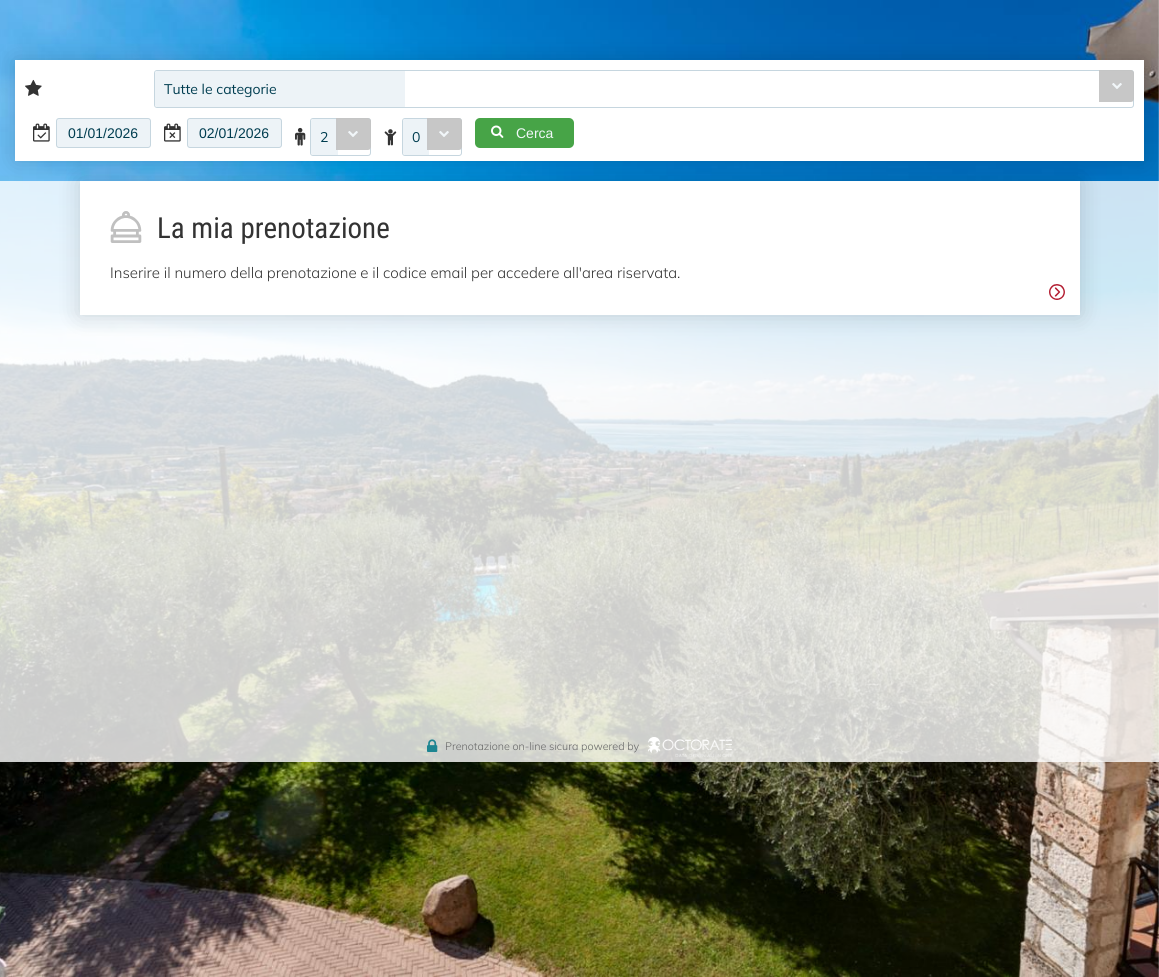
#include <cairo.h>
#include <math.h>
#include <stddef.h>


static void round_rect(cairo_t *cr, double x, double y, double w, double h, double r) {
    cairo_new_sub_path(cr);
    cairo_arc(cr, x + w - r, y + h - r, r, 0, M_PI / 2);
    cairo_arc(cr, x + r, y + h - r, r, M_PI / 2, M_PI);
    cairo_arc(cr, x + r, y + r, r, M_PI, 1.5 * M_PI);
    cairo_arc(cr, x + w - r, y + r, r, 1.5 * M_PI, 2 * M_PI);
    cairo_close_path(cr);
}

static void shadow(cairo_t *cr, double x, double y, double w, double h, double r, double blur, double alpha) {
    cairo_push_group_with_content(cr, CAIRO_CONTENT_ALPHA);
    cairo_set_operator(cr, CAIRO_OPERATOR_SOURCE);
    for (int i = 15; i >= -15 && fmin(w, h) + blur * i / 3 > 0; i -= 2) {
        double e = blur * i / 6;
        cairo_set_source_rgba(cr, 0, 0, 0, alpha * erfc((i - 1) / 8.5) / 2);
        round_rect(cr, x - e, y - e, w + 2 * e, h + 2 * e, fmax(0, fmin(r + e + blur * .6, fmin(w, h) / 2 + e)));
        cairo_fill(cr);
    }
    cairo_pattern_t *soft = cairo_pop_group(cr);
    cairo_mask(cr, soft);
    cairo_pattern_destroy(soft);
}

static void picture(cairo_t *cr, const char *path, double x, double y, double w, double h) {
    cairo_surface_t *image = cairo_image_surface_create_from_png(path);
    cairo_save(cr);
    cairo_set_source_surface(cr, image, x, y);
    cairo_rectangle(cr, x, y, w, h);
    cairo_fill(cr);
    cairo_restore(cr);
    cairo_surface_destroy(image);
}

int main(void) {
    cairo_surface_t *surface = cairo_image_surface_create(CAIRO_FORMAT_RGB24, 1159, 977);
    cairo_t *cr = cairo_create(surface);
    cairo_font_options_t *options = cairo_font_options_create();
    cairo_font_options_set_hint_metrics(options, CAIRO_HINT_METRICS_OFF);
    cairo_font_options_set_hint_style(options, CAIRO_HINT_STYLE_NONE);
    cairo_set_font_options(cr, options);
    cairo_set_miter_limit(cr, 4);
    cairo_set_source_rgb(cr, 1, 1, 1);
    cairo_paint(cr);
    picture(cr, "img1.png", 0, 0, 1159, 977);
    cairo_set_source_rgba(cr, 1, 1, 1, 0.8);
    cairo_rectangle(cr, 0, 181, 1159, 550);
    cairo_fill(cr);
    cairo_set_source_rgb(cr, 0, 0, 0);
    shadow(cr, 80, 181, 1000, 134, 0, 11.5, 0.15);
    cairo_set_source_rgb(cr, 1, 1, 1);
    cairo_rectangle(cr, 80, 181, 1000, 134);
    cairo_fill(cr);
    cairo_set_source_rgb(cr, 0, 0, 0);
    shadow(cr, 15, 60, 1129, 101, 0, 11.5, 0.15);
    cairo_set_source_rgb(cr, 1, 1, 1);
    cairo_rectangle(cr, 15, 60, 1129, 101);
    cairo_fill(cr);
    picture(cr, "img2.png", 25, 79, 17, 17);
    round_rect(cr, 154.5, 70.5, 979, 37, 2.5);
    cairo_set_source_rgb(cr, 0.776, 0.839, 0.875);
    cairo_set_line_width(cr, 1);
    cairo_stroke(cr);
    cairo_set_source_rgb(cr, 0.929, 0.953, 0.965);
    cairo_new_path(cr);
    cairo_move_to(cr, 157, 71);
    cairo_line_to(cr, 405, 71);
    cairo_line_to(cr, 405, 107);
    cairo_line_to(cr, 157, 107);
    cairo_curve_to(cr, 156, 107, 155, 106, 155, 105);
    cairo_line_to(cr, 155, 73);
    cairo_curve_to(cr, 155, 72, 156, 71, 157, 71);
    cairo_close_path(cr);
    cairo_fill(cr);
    cairo_select_font_face(cr, "Mulish", CAIRO_FONT_SLANT_NORMAL, CAIRO_FONT_WEIGHT_NORMAL);
    cairo_set_font_size(cr, 14);
    cairo_set_source_rgb(cr, 0, 0.239, 0.314);
    cairo_move_to(cr, 164, 94);
    cairo_show_text(cr, "Tutte le categorie");
    cairo_set_source_rgba(cr, 0.773, 0.773, 0.773, 0.95);
    cairo_new_path(cr);
    cairo_move_to(cr, 1099, 70);
    cairo_line_to(cr, 1131, 70);
    cairo_curve_to(cr, 1132.5, 70, 1134, 71.5, 1134, 73);
    cairo_line_to(cr, 1134, 99);
    cairo_curve_to(cr, 1134, 100.5, 1132.5, 102, 1131, 102);
    cairo_line_to(cr, 1099, 102);
    cairo_close_path(cr);
    cairo_fill(cr);
    picture(cr, "img3.png", 1112, 83, 10, 6);
    picture(cr, "img4.png", 33, 123, 17, 19);
    cairo_set_source_rgb(cr, 0.929, 0.953, 0.965);
    round_rect(cr, 56.5, 118.5, 94, 29, 2.5);
    cairo_fill_preserve(cr);
    cairo_set_source_rgb(cr, 0.776, 0.839, 0.875);
    cairo_stroke(cr);
    cairo_select_font_face(cr, "Liberation Sans", CAIRO_FONT_SLANT_NORMAL, CAIRO_FONT_WEIGHT_NORMAL);
    cairo_set_source_rgb(cr, 0, 0.239, 0.314);
    cairo_move_to(cr, 68, 138);
    cairo_show_text(cr, "01/01/2026");
    picture(cr, "img5.png", 164, 123, 17, 19);
    cairo_set_source_rgb(cr, 0.929, 0.953, 0.965);
    round_rect(cr, 187.5, 118.5, 94, 29, 2.5);
    cairo_fill_preserve(cr);
    cairo_set_source_rgb(cr, 0.776, 0.839, 0.875);
    cairo_stroke(cr);
    cairo_set_source_rgb(cr, 0, 0.239, 0.314);
    cairo_move_to(cr, 199, 138);
    cairo_show_text(cr, "02/01/2026");
    picture(cr, "img6.png", 295, 127, 11, 19);
    round_rect(cr, 310.5, 118.5, 60, 37, 2.5);
    cairo_set_source_rgb(cr, 0.776, 0.839, 0.875);
    cairo_stroke(cr);
    cairo_set_source_rgb(cr, 0.929, 0.953, 0.965);
    cairo_new_path(cr);
    cairo_move_to(cr, 313, 119);
    cairo_line_to(cr, 338, 119);
    cairo_line_to(cr, 338, 155);
    cairo_line_to(cr, 313, 155);
    cairo_curve_to(cr, 312, 155, 311, 154, 311, 153);
    cairo_line_to(cr, 311, 121);
    cairo_curve_to(cr, 311, 120, 312, 119, 313, 119);
    cairo_close_path(cr);
    cairo_fill(cr);
    cairo_select_font_face(cr, "Mulish", CAIRO_FONT_SLANT_NORMAL, CAIRO_FONT_WEIGHT_NORMAL);
    cairo_set_source_rgb(cr, 0, 0.239, 0.314);
    cairo_move_to(cr, 320, 142);
    cairo_show_text(cr, "2");
    cairo_set_source_rgba(cr, 0.773, 0.773, 0.773, 0.95);
    cairo_new_path(cr);
    cairo_move_to(cr, 336, 118);
    cairo_line_to(cr, 368, 118);
    cairo_curve_to(cr, 369.5, 118, 371, 119.5, 371, 121);
    cairo_line_to(cr, 371, 147);
    cairo_curve_to(cr, 371, 148.5, 369.5, 150, 368, 150);
    cairo_line_to(cr, 336, 150);
    cairo_close_path(cr);
    cairo_fill(cr);
    picture(cr, "img3.png", 348, 131, 10, 6);
    picture(cr, "img7.png", 384, 129, 13, 17);
    round_rect(cr, 402.5, 118.5, 59, 37, 2.5);
    cairo_set_source_rgb(cr, 0.776, 0.839, 0.875);
    cairo_stroke(cr);
    cairo_set_source_rgb(cr, 0.929, 0.953, 0.965);
    cairo_new_path(cr);
    cairo_move_to(cr, 405, 119);
    cairo_line_to(cr, 429, 119);
    cairo_line_to(cr, 429, 155);
    cairo_line_to(cr, 405, 155);
    cairo_curve_to(cr, 404, 155, 403, 154, 403, 153);
    cairo_line_to(cr, 403, 121);
    cairo_curve_to(cr, 403, 120, 404, 119, 405, 119);
    cairo_close_path(cr);
    cairo_fill(cr);
    cairo_set_source_rgb(cr, 0, 0.239, 0.314);
    cairo_move_to(cr, 412, 142);
    cairo_show_text(cr, "0");
    cairo_set_source_rgba(cr, 0.773, 0.773, 0.773, 0.95);
    cairo_new_path(cr);
    cairo_move_to(cr, 427, 118);
    cairo_line_to(cr, 459, 118);
    cairo_curve_to(cr, 460.5, 118, 462, 119.5, 462, 121);
    cairo_line_to(cr, 462, 147);
    cairo_curve_to(cr, 462, 148.5, 460.5, 150, 459, 150);
    cairo_line_to(cr, 427, 150);
    cairo_close_path(cr);
    cairo_fill(cr);
    picture(cr, "img3.png", 439, 131, 10, 6);
    cairo_set_source_rgb(cr, 0.278, 0.643, 0.278);
    round_rect(cr, 475, 118, 99, 30, 5);
    cairo_fill(cr);
    picture(cr, "img8.png", 491, 125, 13, 13);
    cairo_select_font_face(cr, "Liberation Sans", CAIRO_FONT_SLANT_NORMAL, CAIRO_FONT_WEIGHT_NORMAL);
    cairo_set_source_rgb(cr, 0.945, 0.965, 0.976);
    cairo_move_to(cr, 516, 138);
    cairo_show_text(cr, "Cerca");
    picture(cr, "img9.png", 110, 211, 32, 32);
    cairo_select_font_face(cr, "Roboto Condensed", CAIRO_FONT_SLANT_NORMAL, CAIRO_FONT_WEIGHT_NORMAL);
    cairo_set_font_size(cr, 29);
    cairo_set_source_rgb(cr, 0.2, 0.2, 0.2);
    cairo_move_to(cr, 157, 238);
    cairo_show_text(cr, "La mia prenotazione");
    cairo_select_font_face(cr, "Mulish Light", CAIRO_FONT_SLANT_NORMAL, CAIRO_FONT_WEIGHT_NORMAL);
    cairo_set_font_size(cr, 15);
    cairo_move_to(cr, 110, 278);
    cairo_show_text(cr, "Inserire il numero della prenotazione e il codice email per accedere all'area riservata.");
    picture(cr, "img10.png", 1049, 284, 16, 16);
    cairo_set_source_rgba(cr, 1, 1, 1, 0.8);
    cairo_rectangle(cr, 0, 731, 1159, 31);
    cairo_fill(cr);
    picture(cr, "img11.png", 427, 739, 11, 13);
    cairo_set_font_size(cr, 10.75);
    cairo_set_source_rgb(cr, 0.4, 0.4, 0.4);
    cairo_move_to(cr, 445, 750);
    cairo_show_text(cr, "Prenotazione on-line sicura powered by");
    picture(cr, "img12.png", 648, 737, 84, 20);
    cairo_surface_write_to_png(surface, "page.png");
    cairo_font_options_destroy(options);
    cairo_destroy(cr);
    cairo_surface_destroy(surface);
    return 0;
}
